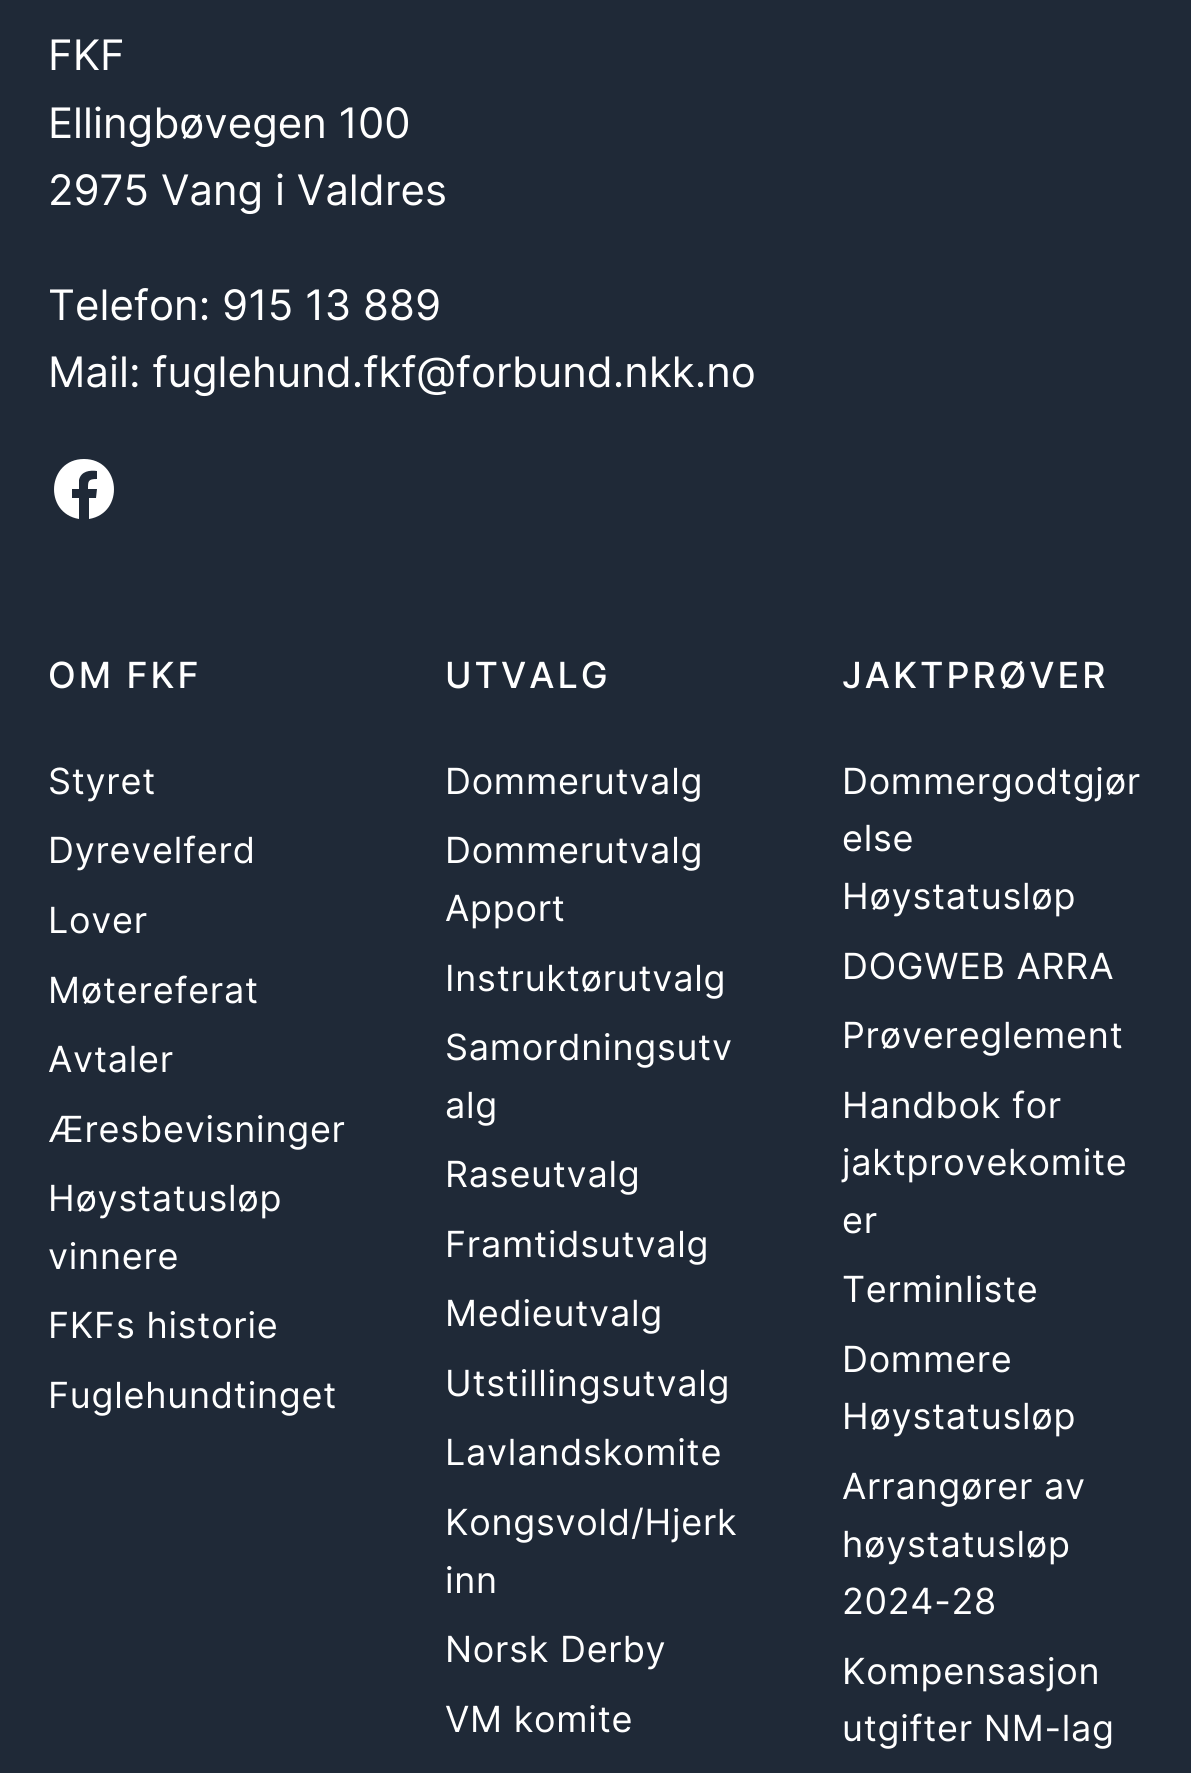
#include <cairo.h>
#include <math.h>
#include <stddef.h>


static void spaced_text(cairo_t *cr, double x, double y, const char *s, double letter, double word) {
    cairo_move_to(cr, x, y);
    while (*s) {
        char ch[5] = {0};
        int n = 0;
        do ch[n++] = *s++; while ((*s & 0xC0) == 0x80);
        cairo_show_text(cr, ch);
        cairo_rel_move_to(cr, letter + word * (*ch == ' '), 0);
    }
}

int main(void) {
    cairo_surface_t *surface = cairo_image_surface_create(CAIRO_FORMAT_RGB24, 1191, 1773);
    cairo_t *cr = cairo_create(surface);
    cairo_font_options_t *options = cairo_font_options_create();
    cairo_font_options_set_hint_metrics(options, CAIRO_HINT_METRICS_OFF);
    cairo_font_options_set_hint_style(options, CAIRO_HINT_STYLE_NONE);
    cairo_set_font_options(cr, options);
    cairo_set_miter_limit(cr, 4);
    cairo_set_source_rgb(cr, 0.122, 0.161, 0.216);
    cairo_paint(cr);
    cairo_select_font_face(cr, "Inter", CAIRO_FONT_SLANT_NORMAL, CAIRO_FONT_WEIGHT_NORMAL);
    cairo_set_font_size(cr, 42);
    cairo_set_source_rgb(cr, 1, 1, 1);
    cairo_move_to(cr, 48, 70);
    cairo_show_text(cr, "FKF");
    cairo_move_to(cr, 48, 138);
    cairo_show_text(cr, "Ellingbøvegen 100");
    cairo_move_to(cr, 48, 205);
    cairo_show_text(cr, "2975 Vang i Valdres");
    cairo_move_to(cr, 48, 320);
    cairo_show_text(cr, "Telefon: 915 13 889");
    cairo_move_to(cr, 48, 387);
    cairo_show_text(cr, "Mail: fuglehund.fkf@forbund.nkk.no");
    cairo_new_path(cr);
    cairo_move_to(cr, 84, 459);
    cairo_curve_to(cr, 47, 459, 43, 513, 79, 519);
    cairo_line_to(cr, 79, 498);
    cairo_line_to(cr, 72, 498);
    cairo_line_to(cr, 72, 489);
    cairo_line_to(cr, 79, 489);
    cairo_line_to(cr, 79, 480);
    cairo_curve_to(cr, 81, 471, 90, 470, 97, 471);
    cairo_line_to(cr, 97, 479);
    cairo_curve_to(cr, 88, 479, 88, 481, 88, 489);
    cairo_line_to(cr, 97, 489);
    cairo_line_to(cr, 96, 498);
    cairo_line_to(cr, 89, 498);
    cairo_line_to(cr, 89, 519);
    cairo_curve_to(cr, 125, 513, 121, 459, 84, 459);
    cairo_close_path(cr);
    cairo_fill(cr);
    cairo_select_font_face(cr, "Inter Medium", CAIRO_FONT_SLANT_NORMAL, CAIRO_FONT_WEIGHT_NORMAL);
    cairo_set_font_size(cr, 36);
    spaced_text(cr, 48, 688, "OM FKF", 3, 0);
    cairo_select_font_face(cr, "Inter", CAIRO_FONT_SLANT_NORMAL, CAIRO_FONT_WEIGHT_NORMAL);
    spaced_text(cr, 48, 794, "Styret", 0.75, 0);
    spaced_text(cr, 48, 863, "Dyrevelferd", 0.75, 0);
    spaced_text(cr, 48, 933, "Lover", 0.75, 0);
    spaced_text(cr, 48, 1003, "Møtereferat", 0.75, 0);
    spaced_text(cr, 48, 1072, "Avtaler", 0.75, 0);
    spaced_text(cr, 48, 1142, "Æresbevisninger", 0.75, 0);
    spaced_text(cr, 48, 1211, "Høystatusløp", 0.75, 0);
    spaced_text(cr, 48, 1269, "vinnere", 0.75, 0);
    spaced_text(cr, 48, 1338, "FKFs historie", 0.75, 0);
    spaced_text(cr, 48, 1408, "Fuglehundtinget", 0.75, 0);
    cairo_select_font_face(cr, "Inter Medium", CAIRO_FONT_SLANT_NORMAL, CAIRO_FONT_WEIGHT_NORMAL);
    spaced_text(cr, 445, 688, "UTVALG", 3, 0);
    cairo_select_font_face(cr, "Inter", CAIRO_FONT_SLANT_NORMAL, CAIRO_FONT_WEIGHT_NORMAL);
    spaced_text(cr, 445, 794, "Dommerutvalg", 0.75, 0);
    spaced_text(cr, 445, 863, "Dommerutvalg", 0.75, 0);
    spaced_text(cr, 445, 921, "Apport", 0.75, 0);
    spaced_text(cr, 445, 991, "Instruktørutvalg", 0.75, 0);
    spaced_text(cr, 445, 1060, "Samordningsutv", 0.75, 0);
    spaced_text(cr, 445, 1118, "alg", 0.75, 0);
    spaced_text(cr, 445, 1187, "Raseutvalg", 0.75, 0);
    spaced_text(cr, 445, 1257, "Framtidsutvalg", 0.75, 0);
    spaced_text(cr, 445, 1326, "Medieutvalg", 0.75, 0);
    spaced_text(cr, 445, 1396, "Utstillingsutvalg", 0.75, 0);
    spaced_text(cr, 445, 1465, "Lavlandskomite", 0.75, 0);
    spaced_text(cr, 445, 1535, "Kongsvold/Hjerk", 0.75, 0);
    spaced_text(cr, 445, 1593, "inn", 0.75, 0);
    spaced_text(cr, 445, 1662, "Norsk Derby", 0.75, 0);
    spaced_text(cr, 445, 1732, "VM komite", 0.75, 0);
    cairo_select_font_face(cr, "Inter Medium", CAIRO_FONT_SLANT_NORMAL, CAIRO_FONT_WEIGHT_NORMAL);
    spaced_text(cr, 842, 688, "JAKTPRØVER", 3, 0);
    cairo_select_font_face(cr, "Inter", CAIRO_FONT_SLANT_NORMAL, CAIRO_FONT_WEIGHT_NORMAL);
    spaced_text(cr, 842, 794, "Dommergodtgjør", 0.75, 0);
    spaced_text(cr, 842, 851, "else", 0.75, 0);
    spaced_text(cr, 842, 909, "Høystatusløp", 0.75, 0);
    spaced_text(cr, 842, 979, "DOGWEB ARRA", 0.75, 0);
    spaced_text(cr, 842, 1048, "Prøvereglement", 0.75, 0);
    spaced_text(cr, 842, 1118, "Handbok for", 0.75, 0);
    spaced_text(cr, 842, 1175, "jaktprovekomite", 0.75, 0);
    spaced_text(cr, 842, 1233, "er", 0.75, 0);
    spaced_text(cr, 842, 1302, "Terminliste", 0.75, 0);
    spaced_text(cr, 842, 1372, "Dommere", 0.75, 0);
    spaced_text(cr, 842, 1429, "Høystatusløp", 0.75, 0);
    spaced_text(cr, 842, 1499, "Arrangører av", 0.75, 0);
    spaced_text(cr, 842, 1557, "høystatusløp", 0.75, 0);
    spaced_text(cr, 842, 1614, "2024-28", 0.75, 0);
    spaced_text(cr, 842, 1684, "Kompensasjon", 0.75, 0);
    spaced_text(cr, 842, 1741, "utgifter NM-lag", 0.75, 0);
    cairo_surface_write_to_png(surface, "page.png");
    cairo_font_options_destroy(options);
    cairo_destroy(cr);
    cairo_surface_destroy(surface);
    return 0;
}
